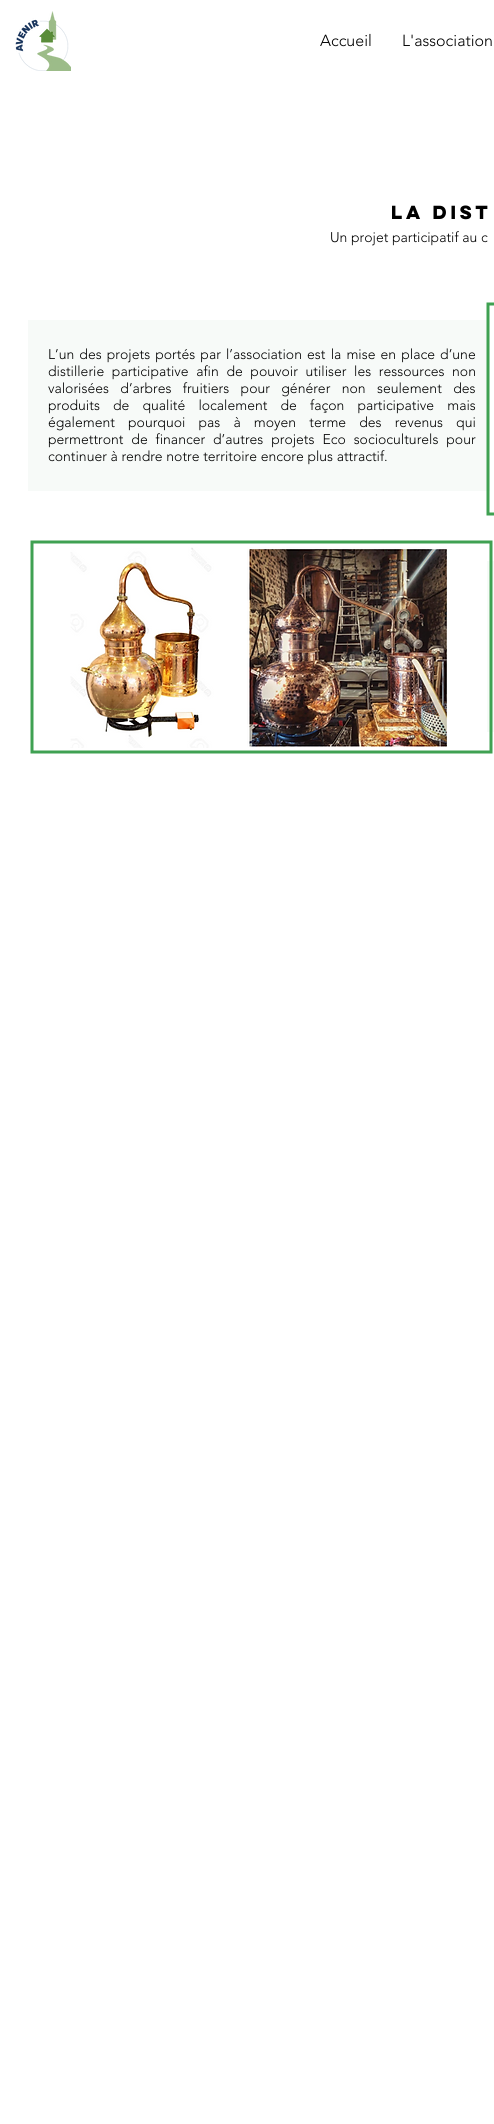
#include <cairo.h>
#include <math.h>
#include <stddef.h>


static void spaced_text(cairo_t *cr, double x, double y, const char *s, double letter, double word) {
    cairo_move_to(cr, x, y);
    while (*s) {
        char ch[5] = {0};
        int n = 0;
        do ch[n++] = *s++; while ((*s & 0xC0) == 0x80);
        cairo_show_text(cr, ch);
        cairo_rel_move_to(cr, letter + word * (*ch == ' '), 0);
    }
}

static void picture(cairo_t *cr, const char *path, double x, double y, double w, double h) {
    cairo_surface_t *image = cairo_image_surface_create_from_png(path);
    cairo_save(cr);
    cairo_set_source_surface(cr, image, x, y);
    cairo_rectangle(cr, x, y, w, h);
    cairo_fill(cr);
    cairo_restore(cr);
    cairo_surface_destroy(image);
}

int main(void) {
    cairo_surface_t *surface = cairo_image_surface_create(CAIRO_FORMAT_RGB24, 494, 2124);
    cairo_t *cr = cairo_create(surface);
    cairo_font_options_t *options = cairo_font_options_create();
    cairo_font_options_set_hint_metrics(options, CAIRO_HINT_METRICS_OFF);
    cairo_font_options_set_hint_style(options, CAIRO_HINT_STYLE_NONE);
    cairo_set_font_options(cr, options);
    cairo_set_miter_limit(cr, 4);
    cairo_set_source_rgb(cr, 1, 1, 1);
    cairo_paint(cr);
    picture(cr, "img1.png", 15, 11, 56, 60);
    cairo_select_font_face(cr, "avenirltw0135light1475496 Light", CAIRO_FONT_SLANT_NORMAL, CAIRO_FONT_WEIGHT_NORMAL);
    cairo_set_font_size(cr, 16);
    cairo_set_source_rgb(cr, 0, 0, 0);
    cairo_move_to(cr, 320, 46);
    cairo_show_text(cr, "Accueil");
    cairo_move_to(cr, 402, 46);
    cairo_show_text(cr, "L'association");
    cairo_select_font_face(cr, "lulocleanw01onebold", CAIRO_FONT_SLANT_NORMAL, CAIRO_FONT_WEIGHT_BOLD);
    cairo_set_font_size(cr, 17);
    cairo_move_to(cr, 391, 219);
    cairo_show_text(cr, "LA dist");
    cairo_select_font_face(cr, "avenirltw0135light1475496 Light", CAIRO_FONT_SLANT_NORMAL, CAIRO_FONT_WEIGHT_NORMAL);
    cairo_set_font_size(cr, 14);
    cairo_move_to(cr, 330, 242);
    cairo_show_text(cr, "Un projet participatif au c");
    cairo_set_source_rgb(cr, 0.965, 0.98, 0.969);
    cairo_rectangle(cr, 28, 320, 462, 171);
    cairo_fill(cr);
    cairo_new_path(cr);
    cairo_move_to(cr, 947, 304);
    cairo_line_to(cr, 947, 514);
    cairo_line_to(cr, 488, 514);
    cairo_line_to(cr, 488, 304);
    cairo_close_path(cr);
    cairo_set_source_rgb(cr, 0.247, 0.631, 0.322);
    cairo_set_line_width(cr, 3);
    cairo_stroke(cr);
    cairo_set_source_rgb(cr, 0, 0, 0);
    spaced_text(cr, 48, 359, "L’un des projets portés par l’association est la mise en place d’une", 0, 1.5);
    spaced_text(cr, 48, 376, "distillerie participative afin de pouvoir utiliser les ressources non", 0, 4);
    spaced_text(cr, 48, 393, "valorisées d’arbres fruitiers pour générer non seulement des", 0, 7.75);
    spaced_text(cr, 48, 410, "produits de qualité localement de façon participative mais", 0, 9.5);
    spaced_text(cr, 48, 427, "également pourquoi pas à moyen terme des revenus qui", 0, 9.5);
    spaced_text(cr, 48, 444, "permettront de financer d’autres projets Eco socioculturels pour", 0, 4.25);
    cairo_move_to(cr, 48, 461);
    cairo_show_text(cr, "continuer à rendre notre territoire encore plus attractif.");
    cairo_new_path(cr);
    cairo_move_to(cr, 491, 542);
    cairo_line_to(cr, 491, 752);
    cairo_line_to(cr, 32, 752);
    cairo_line_to(cr, 32, 542);
    cairo_close_path(cr);
    cairo_set_source_rgb(cr, 0.247, 0.631, 0.322);
    cairo_stroke(cr);
    picture(cr, "img2.png", 70, 547, 377, 201);
    cairo_set_source_rgba(cr, 0.247, 0.631, 0.322, 0.05);
    cairo_rectangle(cr, 487, 561, 7, 171);
    cairo_fill(cr);
    cairo_surface_write_to_png(surface, "page.png");
    cairo_font_options_destroy(options);
    cairo_destroy(cr);
    cairo_surface_destroy(surface);
    return 0;
}
